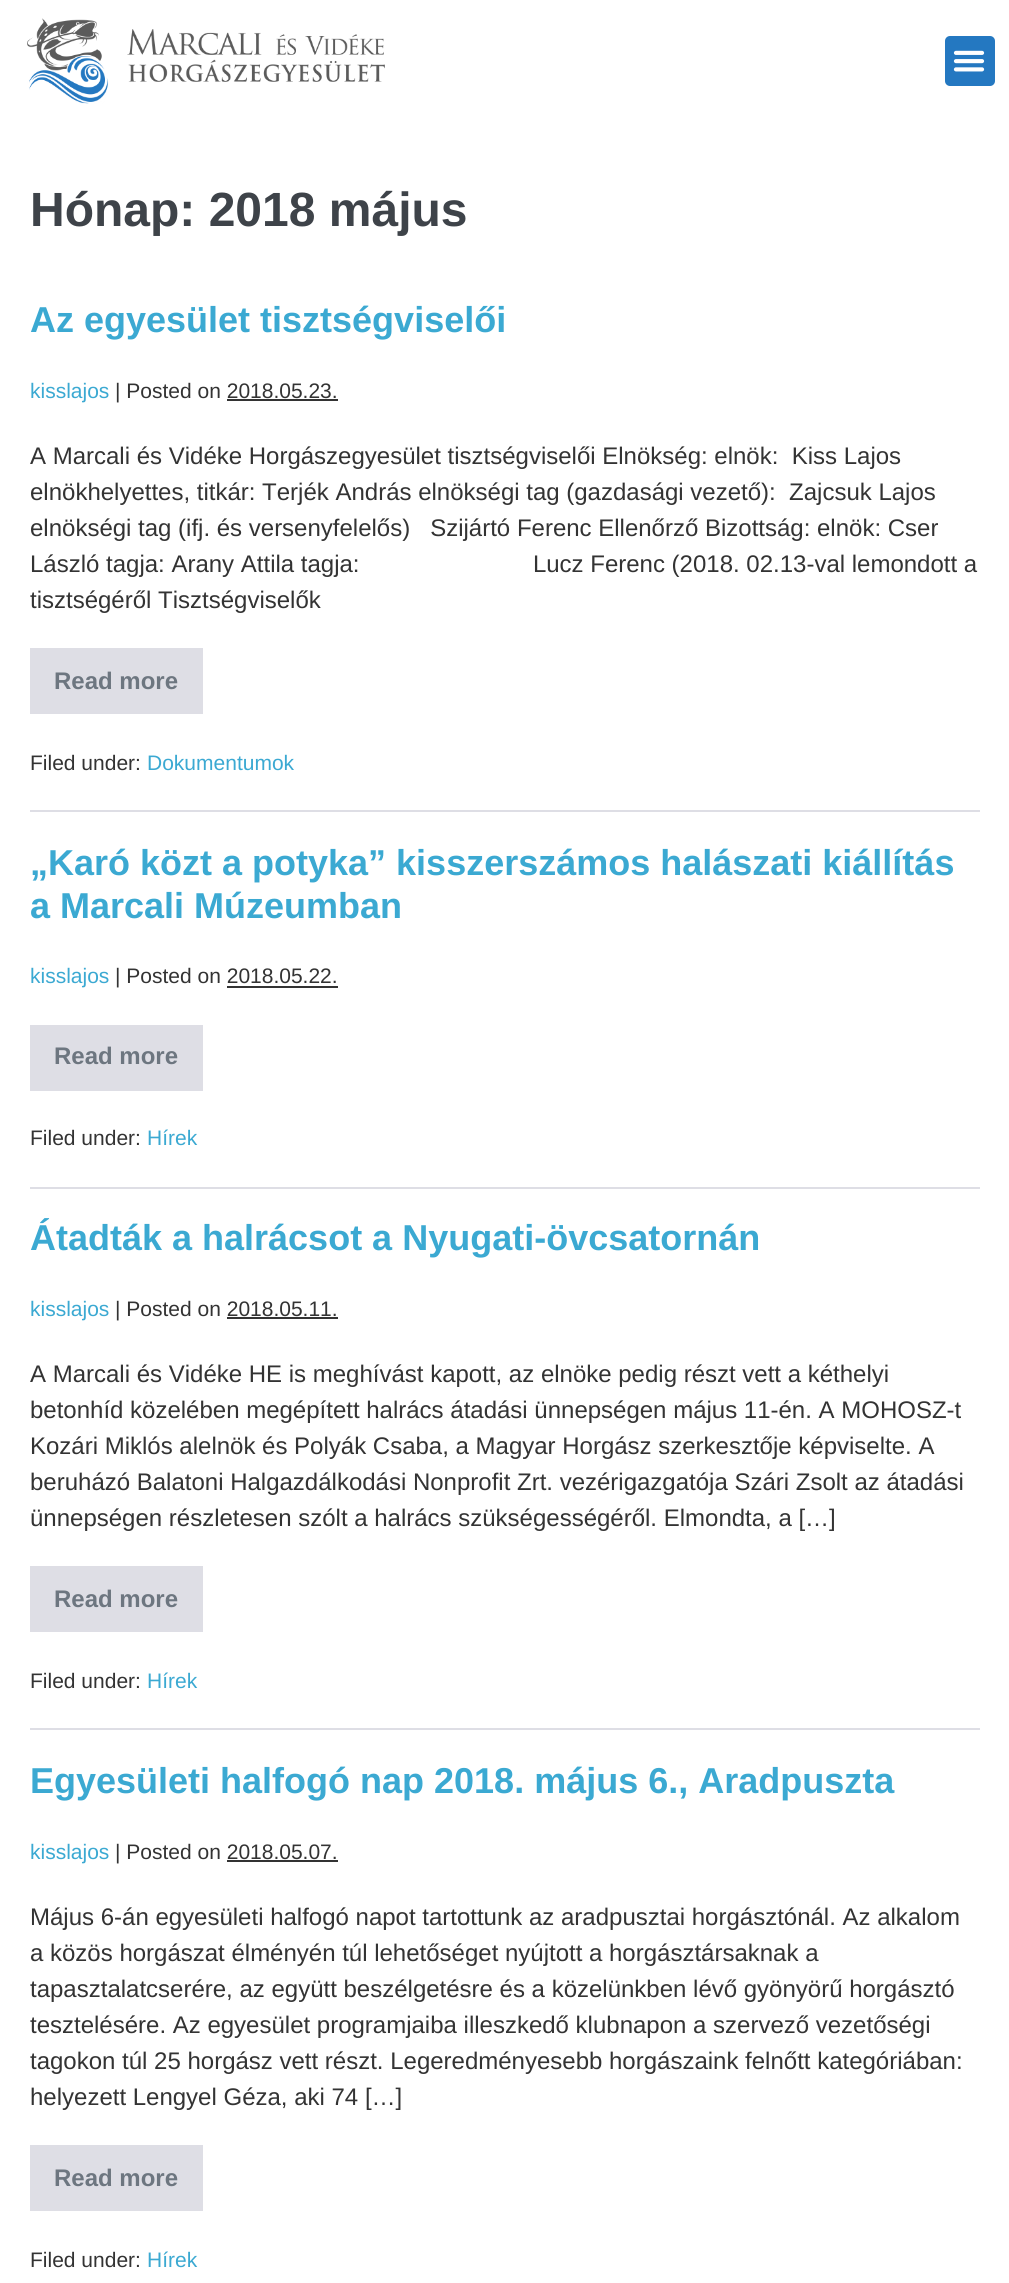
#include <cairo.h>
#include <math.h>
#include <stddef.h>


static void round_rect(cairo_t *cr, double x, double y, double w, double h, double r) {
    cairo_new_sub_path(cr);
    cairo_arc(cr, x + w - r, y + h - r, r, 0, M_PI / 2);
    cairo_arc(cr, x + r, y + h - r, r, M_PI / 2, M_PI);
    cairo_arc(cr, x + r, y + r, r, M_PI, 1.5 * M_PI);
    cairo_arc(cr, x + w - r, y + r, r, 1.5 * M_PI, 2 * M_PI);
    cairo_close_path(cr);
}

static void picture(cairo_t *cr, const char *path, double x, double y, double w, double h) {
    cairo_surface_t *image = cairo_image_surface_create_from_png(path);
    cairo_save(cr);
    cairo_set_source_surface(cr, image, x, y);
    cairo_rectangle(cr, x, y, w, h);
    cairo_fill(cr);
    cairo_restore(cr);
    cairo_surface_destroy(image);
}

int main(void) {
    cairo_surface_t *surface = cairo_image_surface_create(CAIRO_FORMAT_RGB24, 1009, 2283);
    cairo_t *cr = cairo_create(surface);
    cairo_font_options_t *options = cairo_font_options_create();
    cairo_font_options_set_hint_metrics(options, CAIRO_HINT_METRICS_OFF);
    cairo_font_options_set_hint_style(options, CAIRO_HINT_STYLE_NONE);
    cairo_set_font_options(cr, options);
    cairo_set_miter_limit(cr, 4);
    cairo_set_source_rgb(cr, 1, 1, 1);
    cairo_paint(cr);
    picture(cr, "img1.png", 27, 18, 358, 86);
    cairo_set_source_rgb(cr, 0.141, 0.471, 0.757);
    round_rect(cr, 945, 36, 50, 50, 5);
    cairo_fill(cr);
    picture(cr, "img2.png", 953, 50, 32, 22);
    cairo_select_font_face(cr, "Liberation Sans", CAIRO_FONT_SLANT_NORMAL, CAIRO_FONT_WEIGHT_BOLD);
    cairo_set_font_size(cr, 48);
    cairo_set_source_rgb(cr, 0.243, 0.263, 0.286);
    cairo_move_to(cr, 30, 226);
    cairo_show_text(cr, "Hónap: 2018 május");
    cairo_set_source_rgb(cr, 0.871, 0.871, 0.898);
    cairo_rectangle(cr, 30, 810, 950, 2);
    cairo_fill(cr);
    cairo_set_font_size(cr, 36);
    cairo_set_source_rgb(cr, 0.231, 0.663, 0.824);
    cairo_move_to(cr, 30, 332);
    cairo_show_text(cr, "Az egyesület tisztségviselői");
    cairo_select_font_face(cr, "Liberation Sans", CAIRO_FONT_SLANT_NORMAL, CAIRO_FONT_WEIGHT_NORMAL);
    cairo_set_font_size(cr, 21);
    cairo_move_to(cr, 30, 398);
    cairo_show_text(cr, "kisslajos");
    cairo_set_source_rgb(cr, 0.2, 0.2, 0.2);
    cairo_move_to(cr, 115, 398);
    cairo_show_text(cr, "| Posted on 2018.05.23.");
    cairo_rectangle(cr, 227, 399, 111, 2);
    cairo_fill(cr);
    cairo_set_font_size(cr, 24);
    cairo_move_to(cr, 30, 464);
    cairo_show_text(cr, "A Marcali és Vidéke Horgászegyesület tisztségviselői Elnökség: elnök:  Kiss Lajos");
    cairo_move_to(cr, 30, 500);
    cairo_show_text(cr, "elnökhelyettes, titkár: Terjék András elnökségi tag (gazdasági vezető):  Zajcsuk Lajos");
    cairo_move_to(cr, 30, 536);
    cairo_show_text(cr, "elnökségi tag (ifj. és versenyfelelős)   Szijártó Ferenc Ellenőrző Bizottság: elnök: Cser");
    cairo_move_to(cr, 30, 572);
    cairo_show_text(cr, "László tagja: Arany Attila tagja:                          Lucz Ferenc (2018. 02.13-val lemondott a");
    cairo_move_to(cr, 30, 608);
    cairo_show_text(cr, "tisztségéről Tisztségviselők");
    cairo_set_source_rgb(cr, 0.871, 0.871, 0.898);
    cairo_rectangle(cr, 30, 648, 173, 66);
    cairo_fill(cr);
    cairo_select_font_face(cr, "Liberation Sans", CAIRO_FONT_SLANT_NORMAL, CAIRO_FONT_WEIGHT_BOLD);
    cairo_set_source_rgb(cr, 0.427, 0.463, 0.502);
    cairo_move_to(cr, 54, 689);
    cairo_show_text(cr, "Read more");
    cairo_select_font_face(cr, "Liberation Sans", CAIRO_FONT_SLANT_NORMAL, CAIRO_FONT_WEIGHT_NORMAL);
    cairo_set_font_size(cr, 21);
    cairo_set_source_rgb(cr, 0.2, 0.2, 0.2);
    cairo_move_to(cr, 30, 770);
    cairo_show_text(cr, "Filed under:");
    cairo_set_source_rgb(cr, 0.231, 0.663, 0.824);
    cairo_move_to(cr, 147, 770);
    cairo_show_text(cr, "Dokumentumok");
    cairo_set_source_rgb(cr, 0.871, 0.871, 0.898);
    cairo_rectangle(cr, 30, 1187, 950, 2);
    cairo_fill(cr);
    cairo_select_font_face(cr, "Liberation Sans", CAIRO_FONT_SLANT_NORMAL, CAIRO_FONT_WEIGHT_BOLD);
    cairo_set_font_size(cr, 36);
    cairo_set_source_rgb(cr, 0.231, 0.663, 0.824);
    cairo_move_to(cr, 30, 875);
    cairo_show_text(cr, "„Karó közt a potyka” kisszerszámos halászati kiállítás");
    cairo_move_to(cr, 30, 918);
    cairo_show_text(cr, "a Marcali Múzeumban");
    cairo_select_font_face(cr, "Liberation Sans", CAIRO_FONT_SLANT_NORMAL, CAIRO_FONT_WEIGHT_NORMAL);
    cairo_set_font_size(cr, 21);
    cairo_move_to(cr, 30, 983);
    cairo_show_text(cr, "kisslajos");
    cairo_set_source_rgb(cr, 0.2, 0.2, 0.2);
    cairo_move_to(cr, 115, 983);
    cairo_show_text(cr, "| Posted on 2018.05.22.");
    cairo_rectangle(cr, 227, 986, 111, 2);
    cairo_fill(cr);
    cairo_set_source_rgb(cr, 0.871, 0.871, 0.898);
    cairo_rectangle(cr, 30, 1025, 173, 66);
    cairo_fill(cr);
    cairo_select_font_face(cr, "Liberation Sans", CAIRO_FONT_SLANT_NORMAL, CAIRO_FONT_WEIGHT_BOLD);
    cairo_set_font_size(cr, 24);
    cairo_set_source_rgb(cr, 0.427, 0.463, 0.502);
    cairo_move_to(cr, 54, 1064);
    cairo_show_text(cr, "Read more");
    cairo_select_font_face(cr, "Liberation Sans", CAIRO_FONT_SLANT_NORMAL, CAIRO_FONT_WEIGHT_NORMAL);
    cairo_set_font_size(cr, 21);
    cairo_set_source_rgb(cr, 0.2, 0.2, 0.2);
    cairo_move_to(cr, 30, 1145);
    cairo_show_text(cr, "Filed under:");
    cairo_set_source_rgb(cr, 0.231, 0.663, 0.824);
    cairo_move_to(cr, 147, 1145);
    cairo_show_text(cr, "Hírek");
    cairo_set_source_rgb(cr, 0.871, 0.871, 0.898);
    cairo_rectangle(cr, 30, 1728, 950, 2);
    cairo_fill(cr);
    cairo_select_font_face(cr, "Liberation Sans", CAIRO_FONT_SLANT_NORMAL, CAIRO_FONT_WEIGHT_BOLD);
    cairo_set_font_size(cr, 36);
    cairo_set_source_rgb(cr, 0.231, 0.663, 0.824);
    cairo_move_to(cr, 30, 1250);
    cairo_show_text(cr, "Átadták a halrácsot a Nyugati-övcsatornán");
    cairo_select_font_face(cr, "Liberation Sans", CAIRO_FONT_SLANT_NORMAL, CAIRO_FONT_WEIGHT_NORMAL);
    cairo_set_font_size(cr, 21);
    cairo_move_to(cr, 30, 1316);
    cairo_show_text(cr, "kisslajos");
    cairo_set_source_rgb(cr, 0.2, 0.2, 0.2);
    cairo_move_to(cr, 115, 1316);
    cairo_show_text(cr, "| Posted on 2018.05.11.");
    cairo_rectangle(cr, 227, 1317, 111, 2);
    cairo_fill(cr);
    cairo_set_font_size(cr, 24);
    cairo_move_to(cr, 30, 1382);
    cairo_show_text(cr, "A Marcali és Vidéke HE is meghívást kapott, az elnöke pedig részt vett a kéthelyi");
    cairo_move_to(cr, 30, 1418);
    cairo_show_text(cr, "betonhíd közelében megépített halrács átadási ünnepségen május 11-én. A MOHOSZ-t");
    cairo_move_to(cr, 30, 1454);
    cairo_show_text(cr, "Kozári Miklós alelnök és Polyák Csaba, a Magyar Horgász szerkesztője képviselte. A");
    cairo_move_to(cr, 30, 1490);
    cairo_show_text(cr, "beruházó Balatoni Halgazdálkodási Nonprofit Zrt. vezérigazgatója Szári Zsolt az átadási");
    cairo_move_to(cr, 30, 1526);
    cairo_show_text(cr, "ünnepségen részletesen szólt a halrács szükségességéről. Elmondta, a […]");
    cairo_set_source_rgb(cr, 0.871, 0.871, 0.898);
    cairo_rectangle(cr, 30, 1566, 173, 66);
    cairo_fill(cr);
    cairo_select_font_face(cr, "Liberation Sans", CAIRO_FONT_SLANT_NORMAL, CAIRO_FONT_WEIGHT_BOLD);
    cairo_set_source_rgb(cr, 0.427, 0.463, 0.502);
    cairo_move_to(cr, 54, 1607);
    cairo_show_text(cr, "Read more");
    cairo_select_font_face(cr, "Liberation Sans", CAIRO_FONT_SLANT_NORMAL, CAIRO_FONT_WEIGHT_NORMAL);
    cairo_set_font_size(cr, 21);
    cairo_set_source_rgb(cr, 0.2, 0.2, 0.2);
    cairo_move_to(cr, 30, 1688);
    cairo_show_text(cr, "Filed under:");
    cairo_set_source_rgb(cr, 0.231, 0.663, 0.824);
    cairo_move_to(cr, 147, 1688);
    cairo_show_text(cr, "Hírek");
    cairo_select_font_face(cr, "Liberation Sans", CAIRO_FONT_SLANT_NORMAL, CAIRO_FONT_WEIGHT_BOLD);
    cairo_set_font_size(cr, 36);
    cairo_move_to(cr, 30, 1793);
    cairo_show_text(cr, "Egyesületi halfogó nap 2018. május 6., Aradpuszta");
    cairo_select_font_face(cr, "Liberation Sans", CAIRO_FONT_SLANT_NORMAL, CAIRO_FONT_WEIGHT_NORMAL);
    cairo_set_font_size(cr, 21);
    cairo_move_to(cr, 30, 1859);
    cairo_show_text(cr, "kisslajos");
    cairo_set_source_rgb(cr, 0.2, 0.2, 0.2);
    cairo_move_to(cr, 115, 1859);
    cairo_show_text(cr, "| Posted on 2018.05.07.");
    cairo_rectangle(cr, 227, 1860, 111, 2);
    cairo_fill(cr);
    cairo_set_font_size(cr, 24);
    cairo_move_to(cr, 30, 1925);
    cairo_show_text(cr, "Május 6-án egyesületi halfogó napot tartottunk az aradpusztai horgásztónál. Az alkalom");
    cairo_move_to(cr, 30, 1961);
    cairo_show_text(cr, "a közös horgászat élményén túl lehetőséget nyújtott a horgásztársaknak a");
    cairo_move_to(cr, 30, 1997);
    cairo_show_text(cr, "tapasztalatcserére, az együtt beszélgetésre és a közelünkben lévő gyönyörű horgásztó");
    cairo_move_to(cr, 30, 2033);
    cairo_show_text(cr, "tesztelésére. Az egyesület programjaiba illeszkedő klubnapon a szervező vezetőségi");
    cairo_move_to(cr, 30, 2069);
    cairo_show_text(cr, "tagokon túl 25 horgász vett részt. Legeredményesebb horgászaink felnőtt kategóriában:");
    cairo_move_to(cr, 30, 2105);
    cairo_show_text(cr, "helyezett Lengyel Géza, aki 74 […]");
    cairo_set_source_rgb(cr, 0.871, 0.871, 0.898);
    cairo_rectangle(cr, 30, 2145, 173, 66);
    cairo_fill(cr);
    cairo_select_font_face(cr, "Liberation Sans", CAIRO_FONT_SLANT_NORMAL, CAIRO_FONT_WEIGHT_BOLD);
    cairo_set_source_rgb(cr, 0.427, 0.463, 0.502);
    cairo_move_to(cr, 54, 2186);
    cairo_show_text(cr, "Read more");
    cairo_select_font_face(cr, "Liberation Sans", CAIRO_FONT_SLANT_NORMAL, CAIRO_FONT_WEIGHT_NORMAL);
    cairo_set_font_size(cr, 21);
    cairo_set_source_rgb(cr, 0.2, 0.2, 0.2);
    cairo_move_to(cr, 30, 2267);
    cairo_show_text(cr, "Filed under:");
    cairo_set_source_rgb(cr, 0.231, 0.663, 0.824);
    cairo_move_to(cr, 147, 2267);
    cairo_show_text(cr, "Hírek");
    cairo_surface_write_to_png(surface, "page.png");
    cairo_font_options_destroy(options);
    cairo_destroy(cr);
    cairo_surface_destroy(surface);
    return 0;
}
